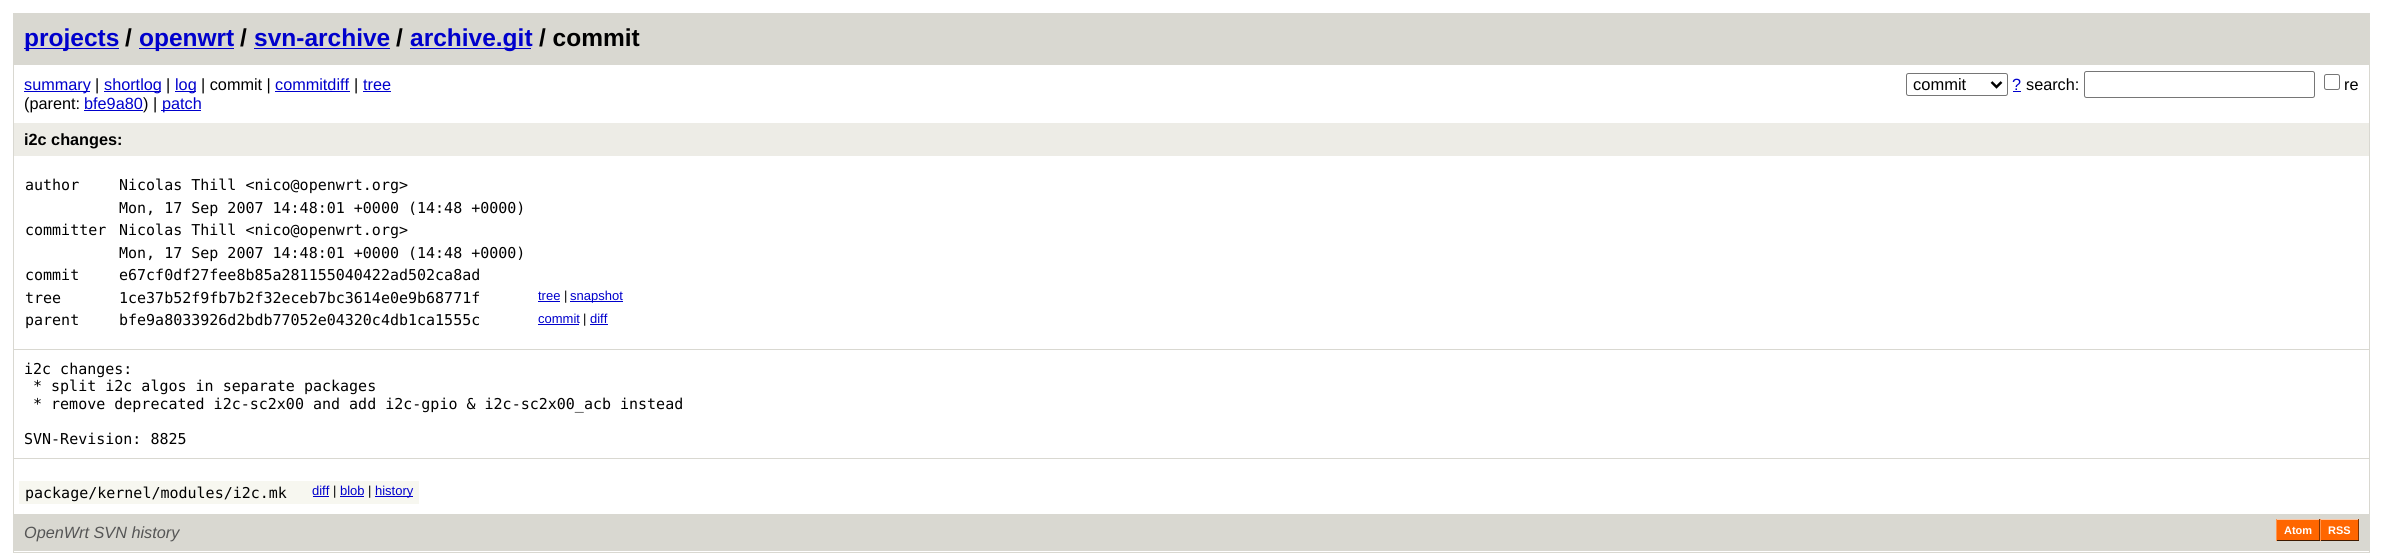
#include <cairo.h>
#include <math.h>
#include <stddef.h>


static void round_rect(cairo_t *cr, double x, double y, double w, double h, double r) {
    cairo_new_sub_path(cr);
    cairo_arc(cr, x + w - r, y + h - r, r, 0, M_PI / 2);
    cairo_arc(cr, x + r, y + h - r, r, M_PI / 2, M_PI);
    cairo_arc(cr, x + r, y + r, r, M_PI, 1.5 * M_PI);
    cairo_arc(cr, x + w - r, y + r, r, 1.5 * M_PI, 2 * M_PI);
    cairo_close_path(cr);
}

int main(void) {
    cairo_surface_t *surface = cairo_image_surface_create(CAIRO_FORMAT_RGB24, 2382, 555);
    cairo_t *cr = cairo_create(surface);
    cairo_font_options_t *options = cairo_font_options_create();
    cairo_font_options_set_hint_metrics(options, CAIRO_HINT_METRICS_OFF);
    cairo_font_options_set_hint_style(options, CAIRO_HINT_STYLE_NONE);
    cairo_set_font_options(cr, options);
    cairo_set_miter_limit(cr, 4);
    cairo_set_source_rgb(cr, 1, 1, 1);
    cairo_paint(cr);
    cairo_rectangle(cr, 13.5, 13.5, 2356, 539);
    cairo_set_source_rgb(cr, 0.851, 0.847, 0.82);
    cairo_set_line_width(cr, 1);
    cairo_stroke(cr);
    cairo_rectangle(cr, 14, 14, 2355, 51);
    cairo_fill(cr);
    cairo_set_source_rgb(cr, 0, 0, 0.8);
    cairo_rectangle(cr, 24, 48, 95, 1);
    cairo_fill(cr);
    cairo_select_font_face(cr, "Liberation Sans", CAIRO_FONT_SLANT_NORMAL, CAIRO_FONT_WEIGHT_BOLD);
    cairo_set_font_size(cr, 24.5);
    cairo_move_to(cr, 24, 46);
    cairo_show_text(cr, "projects");
    cairo_set_source_rgb(cr, 0, 0, 0);
    cairo_move_to(cr, 125, 46);
    cairo_show_text(cr, "/");
    cairo_set_source_rgb(cr, 0, 0, 0.8);
    cairo_rectangle(cr, 139, 48, 95, 1);
    cairo_fill(cr);
    cairo_move_to(cr, 139, 46);
    cairo_show_text(cr, "openwrt");
    cairo_set_source_rgb(cr, 0, 0, 0);
    cairo_move_to(cr, 240, 46);
    cairo_show_text(cr, "/");
    cairo_set_source_rgb(cr, 0, 0, 0.8);
    cairo_move_to(cr, 254, 46);
    cairo_show_text(cr, "svn-archive");
    cairo_rectangle(cr, 254, 48, 136, 1);
    cairo_fill(cr);
    cairo_set_source_rgb(cr, 0, 0, 0);
    cairo_move_to(cr, 396, 46);
    cairo_show_text(cr, "/");
    cairo_set_source_rgb(cr, 0, 0, 0.8);
    cairo_rectangle(cr, 410, 48, 121, 1);
    cairo_fill(cr);
    cairo_move_to(cr, 410, 46);
    cairo_show_text(cr, "archive.git");
    cairo_set_source_rgb(cr, 0, 0, 0);
    cairo_move_to(cr, 539, 46);
    cairo_show_text(cr, "/ commit");
    cairo_set_source_rgb(cr, 0, 0, 0.8);
    cairo_rectangle(cr, 24, 91, 66, 1);
    cairo_fill(cr);
    cairo_select_font_face(cr, "Liberation Sans", CAIRO_FONT_SLANT_NORMAL, CAIRO_FONT_WEIGHT_NORMAL);
    cairo_set_font_size(cr, 16.25);
    cairo_move_to(cr, 24, 90);
    cairo_show_text(cr, "summary");
    cairo_set_source_rgb(cr, 0, 0, 0);
    cairo_move_to(cr, 95, 90);
    cairo_show_text(cr, "|");
    cairo_set_source_rgb(cr, 0, 0, 0.8);
    cairo_rectangle(cr, 104, 91, 57, 1);
    cairo_fill(cr);
    cairo_move_to(cr, 104, 90);
    cairo_show_text(cr, "shortlog");
    cairo_set_source_rgb(cr, 0, 0, 0);
    cairo_move_to(cr, 166, 90);
    cairo_show_text(cr, "|");
    cairo_set_source_rgb(cr, 0, 0, 0.8);
    cairo_rectangle(cr, 175, 91, 21, 1);
    cairo_fill(cr);
    cairo_move_to(cr, 175, 90);
    cairo_show_text(cr, "log");
    cairo_set_source_rgb(cr, 0, 0, 0);
    cairo_move_to(cr, 201, 90);
    cairo_show_text(cr, "| commit |");
    cairo_set_source_rgb(cr, 0, 0, 0.8);
    cairo_move_to(cr, 275, 90);
    cairo_show_text(cr, "commitdiff");
    cairo_rectangle(cr, 275, 91, 75, 1);
    cairo_fill(cr);
    cairo_set_source_rgb(cr, 0, 0, 0);
    cairo_move_to(cr, 354, 90);
    cairo_show_text(cr, "|");
    cairo_set_source_rgb(cr, 0, 0, 0.8);
    cairo_move_to(cr, 363, 90);
    cairo_show_text(cr, "tree");
    cairo_rectangle(cr, 363, 91, 28, 1);
    cairo_fill(cr);
    cairo_set_source_rgb(cr, 0, 0, 0);
    cairo_move_to(cr, 24, 109);
    cairo_show_text(cr, "(parent:");
    cairo_set_source_rgb(cr, 0, 0, 0.8);
    cairo_move_to(cr, 84, 109);
    cairo_show_text(cr, "bfe9a80");
    cairo_rectangle(cr, 84, 110, 59, 1);
    cairo_fill(cr);
    cairo_set_source_rgb(cr, 0, 0, 0);
    cairo_move_to(cr, 143, 109);
    cairo_show_text(cr, ") |");
    cairo_set_source_rgb(cr, 0, 0, 0.8);
    cairo_rectangle(cr, 161, 110, 40, 1);
    cairo_fill(cr);
    cairo_move_to(cr, 162, 109);
    cairo_show_text(cr, "patch");
    round_rect(cr, 1906.5, 73.5, 101, 22, 2);
    cairo_set_source_rgb(cr, 0.463, 0.463, 0.463);
    cairo_stroke(cr);
    cairo_new_path(cr);
    cairo_move_to(cr, 1991.5, 82);
    cairo_line_to(cr, 1996.5, 87);
    cairo_line_to(cr, 2001.5, 82);
    cairo_set_source_rgb(cr, 0, 0, 0);
    cairo_set_line_width(cr, 2.5);
    cairo_stroke(cr);
    cairo_set_font_size(cr, 16.5);
    cairo_move_to(cr, 1913, 90);
    cairo_show_text(cr, "commit");
    cairo_set_font_size(cr, 16.25);
    cairo_set_source_rgb(cr, 0, 0, 0.8);
    cairo_move_to(cr, 2012, 90);
    cairo_show_text(cr, "?");
    cairo_rectangle(cr, 2013, 91, 8, 1);
    cairo_fill(cr);
    cairo_set_source_rgb(cr, 0, 0, 0);
    cairo_move_to(cr, 2026, 90);
    cairo_show_text(cr, "search:");
    round_rect(cr, 2084.5, 71.5, 230, 26, 2);
    cairo_set_source_rgb(cr, 0.463, 0.463, 0.463);
    cairo_set_line_width(cr, 1);
    cairo_stroke(cr);
    round_rect(cr, 2324.5, 74.5, 15, 15, 2);
    cairo_stroke(cr);
    cairo_set_source_rgb(cr, 0, 0, 0);
    cairo_move_to(cr, 2344, 90);
    cairo_show_text(cr, "re");
    cairo_set_source_rgb(cr, 0.929, 0.925, 0.902);
    cairo_rectangle(cr, 14, 123, 2355, 33);
    cairo_fill(cr);
    cairo_select_font_face(cr, "Liberation Sans", CAIRO_FONT_SLANT_NORMAL, CAIRO_FONT_WEIGHT_BOLD);
    cairo_set_source_rgb(cr, 0, 0, 0);
    cairo_move_to(cr, 24, 145);
    cairo_show_text(cr, "i2c changes:");
    cairo_set_source_rgb(cr, 0.851, 0.847, 0.82);
    cairo_rectangle(cr, 14, 349, 2355, 1);
    cairo_fill(cr);
    cairo_select_font_face(cr, "DejaVu Sans Mono", CAIRO_FONT_SLANT_NORMAL, CAIRO_FONT_WEIGHT_NORMAL);
    cairo_set_font_size(cr, 15);
    cairo_set_source_rgb(cr, 0, 0, 0);
    cairo_move_to(cr, 25, 190);
    cairo_show_text(cr, "author");
    cairo_move_to(cr, 119, 190);
    cairo_show_text(cr, "Nicolas Thill <nico@openwrt.org>");
    cairo_move_to(cr, 119, 213);
    cairo_show_text(cr, "Mon, 17 Sep 2007 14:48:01 +0000 (14:48 +0000)");
    cairo_move_to(cr, 25, 235);
    cairo_show_text(cr, "committer");
    cairo_move_to(cr, 119, 235);
    cairo_show_text(cr, "Nicolas Thill <nico@openwrt.org>");
    cairo_move_to(cr, 119, 258);
    cairo_show_text(cr, "Mon, 17 Sep 2007 14:48:01 +0000 (14:48 +0000)");
    cairo_move_to(cr, 25, 280);
    cairo_show_text(cr, "commit");
    cairo_move_to(cr, 119, 280);
    cairo_show_text(cr, "e67cf0df27fee8b85a281155040422ad502ca8ad");
    cairo_move_to(cr, 25, 303);
    cairo_show_text(cr, "tree");
    cairo_move_to(cr, 119, 303);
    cairo_show_text(cr, "1ce37b52f9fb7b2f32eceb7bc3614e0e9b68771f");
    cairo_select_font_face(cr, "Liberation Sans", CAIRO_FONT_SLANT_NORMAL, CAIRO_FONT_WEIGHT_NORMAL);
    cairo_set_font_size(cr, 13);
    cairo_set_source_rgb(cr, 0, 0, 0.8);
    cairo_move_to(cr, 538, 300);
    cairo_show_text(cr, "tree");
    cairo_rectangle(cr, 538, 301, 22, 1);
    cairo_fill(cr);
    cairo_set_source_rgb(cr, 0, 0, 0);
    cairo_move_to(cr, 564, 300);
    cairo_show_text(cr, "|");
    cairo_set_source_rgb(cr, 0, 0, 0.8);
    cairo_rectangle(cr, 570, 301, 53, 1);
    cairo_fill(cr);
    cairo_move_to(cr, 570, 300);
    cairo_show_text(cr, "snapshot");
    cairo_select_font_face(cr, "DejaVu Sans Mono", CAIRO_FONT_SLANT_NORMAL, CAIRO_FONT_WEIGHT_NORMAL);
    cairo_set_font_size(cr, 15);
    cairo_set_source_rgb(cr, 0, 0, 0);
    cairo_move_to(cr, 25, 325);
    cairo_show_text(cr, "parent");
    cairo_move_to(cr, 119, 325);
    cairo_show_text(cr, "bfe9a8033926d2bdb77052e04320c4db1ca1555c");
    cairo_select_font_face(cr, "Liberation Sans", CAIRO_FONT_SLANT_NORMAL, CAIRO_FONT_WEIGHT_NORMAL);
    cairo_set_font_size(cr, 13);
    cairo_set_source_rgb(cr, 0, 0, 0.8);
    cairo_move_to(cr, 538, 323);
    cairo_show_text(cr, "commit");
    cairo_rectangle(cr, 538, 324, 41, 1);
    cairo_fill(cr);
    cairo_set_source_rgb(cr, 0, 0, 0);
    cairo_move_to(cr, 583, 323);
    cairo_show_text(cr, "|");
    cairo_set_source_rgb(cr, 0, 0, 0.8);
    cairo_move_to(cr, 590, 323);
    cairo_show_text(cr, "diff");
    cairo_rectangle(cr, 590, 324, 18, 1);
    cairo_fill(cr);
    cairo_select_font_face(cr, "DejaVu Sans Mono", CAIRO_FONT_SLANT_NORMAL, CAIRO_FONT_WEIGHT_NORMAL);
    cairo_set_font_size(cr, 15);
    cairo_set_source_rgb(cr, 0, 0, 0);
    cairo_move_to(cr, 24, 374);
    cairo_show_text(cr, "i2c changes:");
    cairo_move_to(cr, 33, 391);
    cairo_show_text(cr, "* split i2c algos in separate packages");
    cairo_move_to(cr, 33, 409);
    cairo_show_text(cr, "* remove deprecated i2c-sc2x00 and add i2c-gpio & i2c-sc2x00_acb instead");
    cairo_move_to(cr, 24, 444);
    cairo_show_text(cr, "SVN-Revision: 8825");
    cairo_set_source_rgb(cr, 0.851, 0.847, 0.82);
    cairo_rectangle(cr, 14, 458, 2355, 1);
    cairo_fill(cr);
    cairo_set_source_rgb(cr, 0.965, 0.965, 0.941);
    cairo_rectangle(cr, 19, 481, 400, 23);
    cairo_fill(cr);
    cairo_set_source_rgb(cr, 0, 0, 0);
    cairo_move_to(cr, 25, 498);
    cairo_show_text(cr, "package/kernel/modules/i2c.mk");
    cairo_select_font_face(cr, "Liberation Sans", CAIRO_FONT_SLANT_NORMAL, CAIRO_FONT_WEIGHT_NORMAL);
    cairo_set_font_size(cr, 13);
    cairo_set_source_rgb(cr, 0, 0, 0.8);
    cairo_move_to(cr, 312, 495);
    cairo_show_text(cr, "diff");
    cairo_rectangle(cr, 313, 496, 16, 1);
    cairo_fill(cr);
    cairo_set_source_rgb(cr, 0, 0, 0);
    cairo_move_to(cr, 333, 495);
    cairo_show_text(cr, "|");
    cairo_set_source_rgb(cr, 0, 0, 0.8);
    cairo_move_to(cr, 340, 495);
    cairo_show_text(cr, "blob");
    cairo_rectangle(cr, 340, 496, 24, 1);
    cairo_fill(cr);
    cairo_set_source_rgb(cr, 0, 0, 0);
    cairo_move_to(cr, 368, 495);
    cairo_show_text(cr, "|");
    cairo_set_source_rgb(cr, 0, 0, 0.8);
    cairo_rectangle(cr, 375, 496, 38, 1);
    cairo_fill(cr);
    cairo_move_to(cr, 375, 495);
    cairo_show_text(cr, "history");
    cairo_set_source_rgb(cr, 0.851, 0.847, 0.82);
    cairo_rectangle(cr, 14, 514, 2355, 37);
    cairo_fill(cr);
    cairo_select_font_face(cr, "Liberation Sans", CAIRO_FONT_SLANT_ITALIC, CAIRO_FONT_WEIGHT_NORMAL);
    cairo_set_font_size(cr, 16.25);
    cairo_set_source_rgb(cr, 0.333, 0.333, 0.333);
    cairo_move_to(cr, 24, 538);
    cairo_show_text(cr, "OpenWrt SVN history");
    cairo_set_source_rgb(cr, 1, 0.4, 0);
    cairo_rectangle(cr, 2277, 520, 42, 20);
    cairo_fill(cr);
    cairo_set_source_rgb(cr, 0.988, 0.78, 0.647);
    cairo_rectangle(cr, 2276, 519, 83, 1);
    cairo_fill(cr);
    cairo_set_source_rgb(cr, 0.49, 0.2, 0.008);
    cairo_rectangle(cr, 2319, 519, 1, 22);
    cairo_fill(cr);
    cairo_set_source_rgb(cr, 0.243, 0.102, 0.004);
    cairo_rectangle(cr, 2276, 540, 44, 1);
    cairo_fill(cr);
    cairo_set_source_rgb(cr, 1, 0.584, 0.306);
    cairo_rectangle(cr, 2276, 519, 1, 22);
    cairo_fill(cr);
    cairo_select_font_face(cr, "Liberation Sans", CAIRO_FONT_SLANT_NORMAL, CAIRO_FONT_WEIGHT_BOLD);
    cairo_set_font_size(cr, 11);
    cairo_set_source_rgb(cr, 1, 1, 1);
    cairo_move_to(cr, 2284, 534);
    cairo_show_text(cr, "Atom");
    cairo_set_source_rgb(cr, 1, 0.4, 0);
    cairo_rectangle(cr, 2321, 520, 37, 20);
    cairo_fill(cr);
    cairo_set_source_rgb(cr, 0.49, 0.2, 0.008);
    cairo_rectangle(cr, 2358, 519, 1, 22);
    cairo_fill(cr);
    cairo_set_source_rgb(cr, 0.243, 0.102, 0.004);
    cairo_rectangle(cr, 2320, 540, 39, 1);
    cairo_fill(cr);
    cairo_set_source_rgb(cr, 1, 0.584, 0.306);
    cairo_rectangle(cr, 2320, 519, 1, 22);
    cairo_fill(cr);
    cairo_set_source_rgb(cr, 1, 1, 1);
    cairo_move_to(cr, 2328, 534);
    cairo_show_text(cr, "RSS");
    cairo_surface_write_to_png(surface, "page.png");
    cairo_font_options_destroy(options);
    cairo_destroy(cr);
    cairo_surface_destroy(surface);
    return 0;
}
